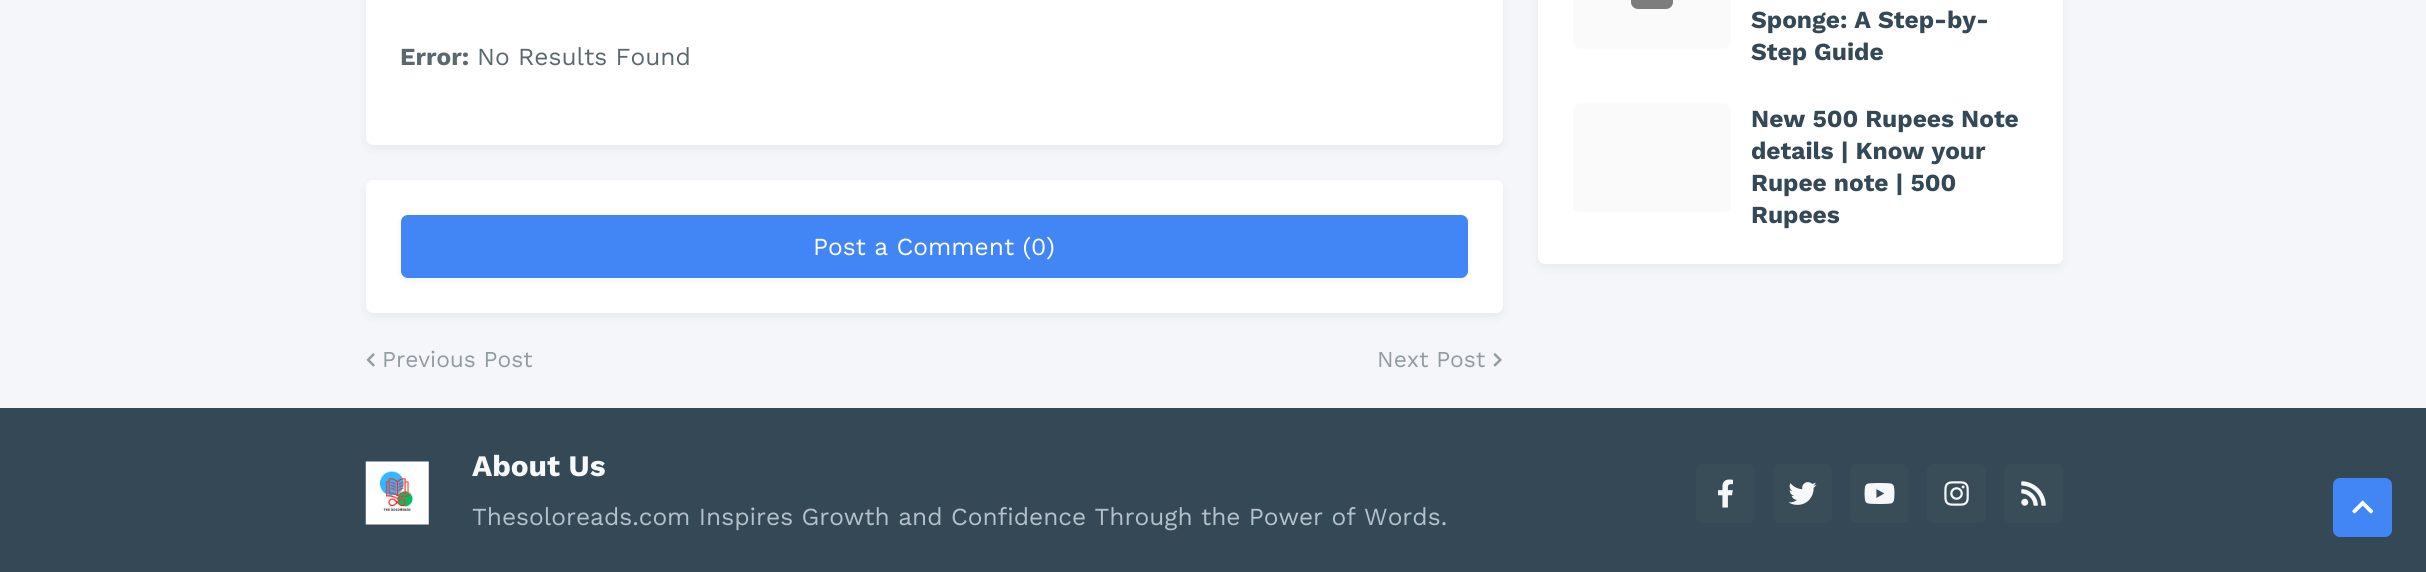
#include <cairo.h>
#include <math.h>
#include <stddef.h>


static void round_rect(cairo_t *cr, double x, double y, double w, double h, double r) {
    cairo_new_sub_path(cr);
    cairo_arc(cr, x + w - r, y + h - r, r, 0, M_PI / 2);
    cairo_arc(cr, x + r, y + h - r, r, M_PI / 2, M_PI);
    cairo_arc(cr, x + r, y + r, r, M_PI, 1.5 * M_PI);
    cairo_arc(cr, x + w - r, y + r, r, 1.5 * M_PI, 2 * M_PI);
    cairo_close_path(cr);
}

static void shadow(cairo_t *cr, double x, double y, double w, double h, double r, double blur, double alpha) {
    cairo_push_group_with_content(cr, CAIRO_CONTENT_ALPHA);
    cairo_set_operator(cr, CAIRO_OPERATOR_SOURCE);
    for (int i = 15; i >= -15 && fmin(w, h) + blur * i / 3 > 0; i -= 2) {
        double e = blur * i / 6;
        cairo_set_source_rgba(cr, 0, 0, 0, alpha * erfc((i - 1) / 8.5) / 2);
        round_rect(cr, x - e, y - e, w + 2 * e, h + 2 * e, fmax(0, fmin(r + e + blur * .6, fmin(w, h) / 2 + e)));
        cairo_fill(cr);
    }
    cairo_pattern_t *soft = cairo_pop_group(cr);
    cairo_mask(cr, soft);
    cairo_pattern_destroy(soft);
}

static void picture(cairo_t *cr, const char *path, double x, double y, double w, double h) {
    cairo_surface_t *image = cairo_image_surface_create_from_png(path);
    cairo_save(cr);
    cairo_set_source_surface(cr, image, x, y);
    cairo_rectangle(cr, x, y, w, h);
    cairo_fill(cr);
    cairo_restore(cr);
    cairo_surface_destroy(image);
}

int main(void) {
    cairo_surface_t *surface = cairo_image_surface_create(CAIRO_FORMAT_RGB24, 2426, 572);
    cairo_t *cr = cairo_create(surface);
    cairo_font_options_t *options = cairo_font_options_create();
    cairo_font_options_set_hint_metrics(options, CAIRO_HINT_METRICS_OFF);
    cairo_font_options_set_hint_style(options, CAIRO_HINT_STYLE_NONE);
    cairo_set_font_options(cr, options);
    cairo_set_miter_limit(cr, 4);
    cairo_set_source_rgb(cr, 0.957, 0.961, 0.98);
    cairo_paint(cr);
    cairo_set_source_rgb(cr, 0, 0, 0);
    shadow(cr, 366, -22, 1137, 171, 7, 5, 0.05);
    cairo_set_source_rgb(cr, 1, 1, 1);
    round_rect(cr, 366, -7, 1137, 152, 7);
    cairo_fill(cr);
    cairo_select_font_face(cr, "Work Sans", CAIRO_FONT_SLANT_NORMAL, CAIRO_FONT_WEIGHT_BOLD);
    cairo_set_font_size(cr, 24.5);
    cairo_set_source_rgb(cr, 0.357, 0.412, 0.435);
    cairo_move_to(cr, 400, 65);
    cairo_show_text(cr, "Error:");
    cairo_select_font_face(cr, "Work Sans", CAIRO_FONT_SLANT_NORMAL, CAIRO_FONT_WEIGHT_NORMAL);
    cairo_move_to(cr, 477, 65);
    cairo_show_text(cr, "No Results Found");
    cairo_set_source_rgb(cr, 0, 0, 0);
    shadow(cr, 366, 184, 1137, 133, 7, 5, 0.05);
    cairo_set_source_rgb(cr, 1, 1, 1);
    round_rect(cr, 366, 180, 1137, 133, 7);
    cairo_fill(cr);
    cairo_set_source_rgb(cr, 0, 0, 0);
    shadow(cr, 401, 217, 1067, 63, 7, 3.5, 0.05);
    cairo_set_source_rgb(cr, 0.259, 0.522, 0.957);
    round_rect(cr, 401, 215, 1067, 63, 7);
    cairo_fill(cr);
    cairo_set_source_rgb(cr, 1, 1, 1);
    cairo_move_to(cr, 813, 255);
    cairo_show_text(cr, "Post a Comment (0)");
    picture(cr, "img1.png", 366, 353, 9, 14);
    cairo_set_font_size(cr, 22.75);
    cairo_set_source_rgb(cr, 0.569, 0.612, 0.635);
    cairo_move_to(cr, 382, 367);
    cairo_show_text(cr, "Previous Post");
    cairo_move_to(cr, 1377, 367);
    cairo_show_text(cr, "Next Post");
    picture(cr, "img2.png", 1493, 353, 9, 14);
    cairo_set_source_rgb(cr, 0, 0, 0);
    shadow(cr, 1538, -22, 525, 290, 7, 5, 0.05);
    cairo_set_source_rgb(cr, 1, 1, 1);
    round_rect(cr, 1538, -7, 525, 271, 7);
    cairo_fill(cr);
    cairo_set_source_rgb(cr, 0.98, 0.98, 0.98);
    round_rect(cr, 1573, -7, 158, 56, 7);
    cairo_fill(cr);
    cairo_set_source_rgb(cr, 0.49, 0.49, 0.49);
    round_rect(cr, 1631, -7, 42, 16, 7);
    cairo_fill(cr);
    cairo_select_font_face(cr, "Work Sans", CAIRO_FONT_SLANT_NORMAL, CAIRO_FONT_WEIGHT_BOLD);
    cairo_set_font_size(cr, 24.5);
    cairo_set_source_rgb(cr, 0.204, 0.286, 0.333);
    cairo_move_to(cr, 1751, 28);
    cairo_show_text(cr, "Sponge: A Step-by-");
    cairo_move_to(cr, 1751, 60);
    cairo_show_text(cr, "Step Guide");
    cairo_set_source_rgb(cr, 0.98, 0.98, 0.98);
    round_rect(cr, 1573, 103, 158, 109, 7);
    cairo_fill(cr);
    cairo_set_source_rgb(cr, 0.204, 0.286, 0.333);
    cairo_move_to(cr, 1751, 127);
    cairo_show_text(cr, "New 500 Rupees Note");
    cairo_move_to(cr, 1751, 159);
    cairo_show_text(cr, "details | Know your");
    cairo_move_to(cr, 1751, 191);
    cairo_show_text(cr, "Rupee note | 500");
    cairo_move_to(cr, 1751, 223);
    cairo_show_text(cr, "Rupees");
    cairo_rectangle(cr, 0, 408, 2426, 164);
    cairo_fill(cr);
    picture(cr, "img3.png", 365, 461, 64, 64);
    cairo_set_font_size(cr, 29.75);
    cairo_set_source_rgb(cr, 0.965, 0.969, 0.973);
    cairo_move_to(cr, 472, 476);
    cairo_show_text(cr, "About Us");
    cairo_select_font_face(cr, "Work Sans", CAIRO_FONT_SLANT_NORMAL, CAIRO_FONT_WEIGHT_NORMAL);
    cairo_set_font_size(cr, 24.5);
    cairo_set_source_rgb(cr, 0.706, 0.757, 0.8);
    cairo_move_to(cr, 472, 525);
    cairo_show_text(cr, "Thesoloreads.com Inspires Growth and Confidence Through the Power of Words.");
    cairo_set_source_rgb(cr, 0.224, 0.302, 0.345);
    round_rect(cr, 1696, 464, 59, 59, 7);
    cairo_fill(cr);
    picture(cr, "img4.png", 1718, 479, 15, 29);
    round_rect(cr, 1773, 464, 59, 59, 7);
    cairo_fill(cr);
    picture(cr, "img5.png", 1788, 482, 29, 23);
    round_rect(cr, 1850, 464, 59, 59, 7);
    cairo_fill(cr);
    picture(cr, "img6.png", 1864, 483, 31, 21);
    round_rect(cr, 1927, 464, 59, 59, 7);
    cairo_fill(cr);
    picture(cr, "img7.png", 1944, 481, 25, 25);
    round_rect(cr, 2004, 464, 59, 59, 7);
    cairo_fill(cr);
    picture(cr, "img8.png", 2021, 481, 25, 25);
    cairo_set_source_rgb(cr, 0.259, 0.522, 0.957);
    round_rect(cr, 2333, 478, 59, 59, 7);
    cairo_fill(cr);
    picture(cr, "img9.png", 2352, 500, 22, 14);
    cairo_surface_write_to_png(surface, "page.png");
    cairo_font_options_destroy(options);
    cairo_destroy(cr);
    cairo_surface_destroy(surface);
    return 0;
}
